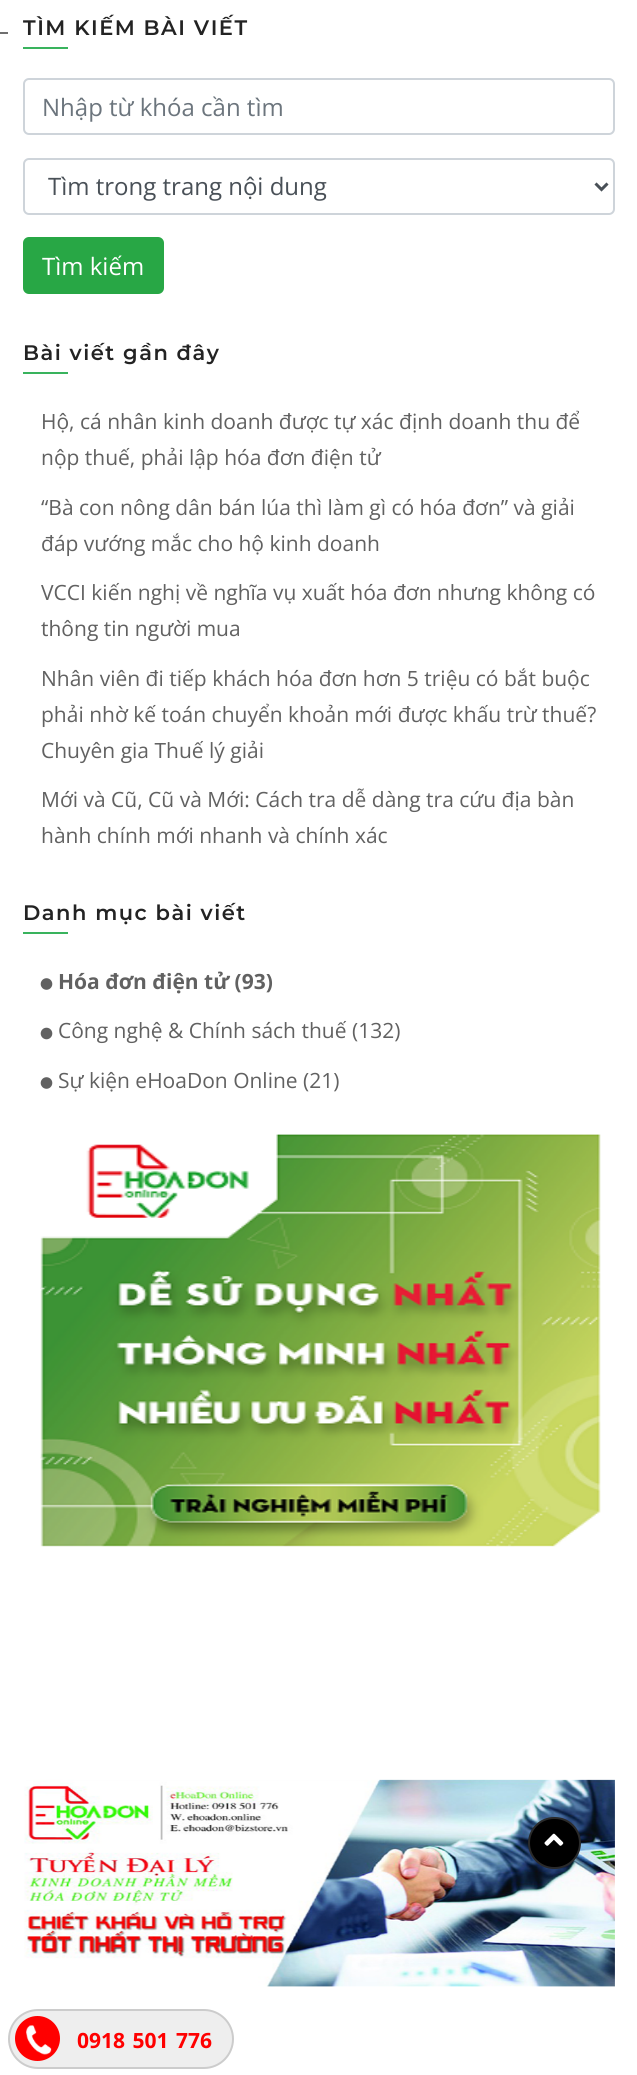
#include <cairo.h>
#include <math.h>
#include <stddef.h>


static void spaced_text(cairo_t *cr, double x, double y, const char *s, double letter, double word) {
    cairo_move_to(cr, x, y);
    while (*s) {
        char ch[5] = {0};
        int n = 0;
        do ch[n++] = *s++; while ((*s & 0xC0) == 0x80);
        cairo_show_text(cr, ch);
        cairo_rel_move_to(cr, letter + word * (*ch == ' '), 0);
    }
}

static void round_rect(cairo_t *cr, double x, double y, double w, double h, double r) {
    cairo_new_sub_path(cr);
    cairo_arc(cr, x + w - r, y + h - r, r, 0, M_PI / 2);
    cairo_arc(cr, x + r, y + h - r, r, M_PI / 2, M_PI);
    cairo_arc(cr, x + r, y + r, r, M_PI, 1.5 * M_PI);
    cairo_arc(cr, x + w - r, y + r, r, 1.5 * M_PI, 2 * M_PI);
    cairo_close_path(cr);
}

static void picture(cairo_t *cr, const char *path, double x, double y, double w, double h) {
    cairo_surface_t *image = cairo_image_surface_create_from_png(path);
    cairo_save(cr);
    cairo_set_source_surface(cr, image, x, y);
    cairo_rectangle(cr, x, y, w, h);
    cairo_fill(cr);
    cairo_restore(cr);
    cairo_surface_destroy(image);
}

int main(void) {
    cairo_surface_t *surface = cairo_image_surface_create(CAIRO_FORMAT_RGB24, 637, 2075);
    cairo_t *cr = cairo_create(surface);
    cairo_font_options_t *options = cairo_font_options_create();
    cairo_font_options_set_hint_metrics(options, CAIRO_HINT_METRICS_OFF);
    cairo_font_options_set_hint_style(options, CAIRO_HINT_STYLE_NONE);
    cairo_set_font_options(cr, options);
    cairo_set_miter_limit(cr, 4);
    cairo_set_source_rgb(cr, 1, 1, 1);
    cairo_paint(cr);
    cairo_select_font_face(cr, "Montserrat SemiBold", CAIRO_FONT_SLANT_NORMAL, CAIRO_FONT_WEIGHT_NORMAL);
    cairo_set_font_size(cr, 21);
    cairo_set_source_rgb(cr, 0.137, 0.137, 0.137);
    spaced_text(cr, 23, 35, "TÌM KIẾM BÀI VIẾT", 1.5, 0);
    cairo_set_source_rgb(cr, 0.224, 0.702, 0.365);
    cairo_rectangle(cr, 23, 47, 45, 2);
    cairo_fill(cr);
    round_rect(cr, 24, 79, 590, 55, 5);
    cairo_set_source_rgb(cr, 0.808, 0.831, 0.855);
    cairo_stroke(cr);
    cairo_select_font_face(cr, "Open Sans", CAIRO_FONT_SLANT_NORMAL, CAIRO_FONT_WEIGHT_NORMAL);
    cairo_set_font_size(cr, 24);
    cairo_set_source_rgb(cr, 0.424, 0.459, 0.49);
    cairo_move_to(cr, 42, 116);
    cairo_show_text(cr, "Nhập từ khóa cần tìm");
    round_rect(cr, 24, 159, 590, 55, 5);
    cairo_set_source_rgb(cr, 0.808, 0.831, 0.855);
    cairo_stroke(cr);
    cairo_new_path(cr);
    cairo_move_to(cr, 595.5, 183.5);
    cairo_line_to(cr, 601.5, 189.5);
    cairo_line_to(cr, 607.5, 183.5);
    cairo_set_source_rgb(cr, 0.286, 0.314, 0.341);
    cairo_set_line_width(cr, 3);
    cairo_stroke(cr);
    cairo_move_to(cr, 48, 195);
    cairo_show_text(cr, "Tìm trong trang nội dung");
    cairo_set_source_rgb(cr, 0.157, 0.655, 0.271);
    round_rect(cr, 24, 238, 139, 55, 5);
    cairo_fill_preserve(cr);
    cairo_set_line_width(cr, 2);
    cairo_stroke(cr);
    cairo_set_source_rgb(cr, 1, 1, 1);
    cairo_move_to(cr, 42, 275);
    cairo_show_text(cr, "Tìm kiếm");
    cairo_select_font_face(cr, "Montserrat SemiBold", CAIRO_FONT_SLANT_NORMAL, CAIRO_FONT_WEIGHT_NORMAL);
    cairo_set_font_size(cr, 21);
    cairo_set_source_rgb(cr, 0.137, 0.137, 0.137);
    spaced_text(cr, 23, 360, "Bài viết gần đây", 1.5, 0);
    cairo_set_source_rgb(cr, 0.224, 0.702, 0.365);
    cairo_rectangle(cr, 23, 372, 45, 2);
    cairo_fill(cr);
    cairo_set_source_rgb(cr, 0.435, 0.435, 0.435);
    cairo_rectangle(cr, 0, 32, 8, 2);
    cairo_fill(cr);
    cairo_select_font_face(cr, "Open Sans", CAIRO_FONT_SLANT_NORMAL, CAIRO_FONT_WEIGHT_NORMAL);
    cairo_set_source_rgb(cr, 0.38, 0.38, 0.38);
    cairo_move_to(cr, 41, 429);
    cairo_show_text(cr, "Hộ, cá nhân kinh doanh được tự xác định doanh thu để");
    cairo_move_to(cr, 41, 465);
    cairo_show_text(cr, "nộp thuế, phải lập hóa đơn điện tử");
    cairo_move_to(cr, 41, 515);
    cairo_show_text(cr, "“Bà con nông dân bán lúa thì làm gì có hóa đơn” và giải");
    cairo_move_to(cr, 41, 551);
    cairo_show_text(cr, "đáp vướng mắc cho hộ kinh doanh");
    cairo_move_to(cr, 41, 600);
    cairo_show_text(cr, "VCCI kiến nghị về nghĩa vụ xuất hóa đơn nhưng không có");
    cairo_move_to(cr, 41, 636);
    cairo_show_text(cr, "thông tin người mua");
    cairo_move_to(cr, 41, 686);
    cairo_show_text(cr, "Nhân viên đi tiếp khách hóa đơn hơn 5 triệu có bắt buộc");
    cairo_move_to(cr, 41, 722);
    cairo_show_text(cr, "phải nhờ kế toán chuyển khoản mới được khấu trừ thuế?");
    cairo_move_to(cr, 41, 758);
    cairo_show_text(cr, "Chuyên gia Thuế lý giải");
    cairo_move_to(cr, 41, 807);
    cairo_show_text(cr, "Mới và Cũ, Cũ và Mới: Cách tra dễ dàng tra cứu địa bàn");
    cairo_move_to(cr, 41, 843);
    cairo_show_text(cr, "hành chính mới nhanh và chính xác");
    cairo_select_font_face(cr, "Montserrat SemiBold", CAIRO_FONT_SLANT_NORMAL, CAIRO_FONT_WEIGHT_NORMAL);
    cairo_set_source_rgb(cr, 0.137, 0.137, 0.137);
    spaced_text(cr, 23, 920, "Danh mục bài viết", 1.5, 0);
    cairo_set_source_rgb(cr, 0.224, 0.702, 0.365);
    cairo_rectangle(cr, 23, 932, 45, 2);
    cairo_fill(cr);
    picture(cr, "img1.png", 40, 978, 13, 12);
    cairo_select_font_face(cr, "Open Sans", CAIRO_FONT_SLANT_NORMAL, CAIRO_FONT_WEIGHT_BOLD);
    cairo_set_source_rgb(cr, 0.38, 0.38, 0.38);
    cairo_move_to(cr, 58, 989);
    cairo_show_text(cr, "Hóa đơn điện tử (93)");
    picture(cr, "img2.png", 40, 1027, 13, 13);
    cairo_select_font_face(cr, "Open Sans", CAIRO_FONT_SLANT_NORMAL, CAIRO_FONT_WEIGHT_NORMAL);
    cairo_move_to(cr, 58, 1038);
    cairo_show_text(cr, "Công nghệ & Chính sách thuế (132)");
    picture(cr, "img1.png", 40, 1077, 13, 12);
    cairo_move_to(cr, 58, 1088);
    cairo_show_text(cr, "Sự kiện eHoaDon Online (21)");
    picture(cr, "img3.png", 40, 1134, 561, 413);
    picture(cr, "img4.png", 24, 1779, 591, 208);
    cairo_set_source_rgb(cr, 0, 0, 0);
    round_rect(cr, 529, 1818, 51, 50, 25);
    cairo_fill_preserve(cr);
    cairo_set_source_rgb(cr, 0.165, 0.165, 0.165);
    cairo_stroke(cr);
    picture(cr, "img5.png", 544, 1833, 20, 13);
    cairo_set_source_rgb(cr, 0.933, 0.933, 0.933);
    round_rect(cr, 9, 2010, 224, 58, 29);
    cairo_fill_preserve(cr);
    cairo_set_source_rgb(cr, 0.8, 0.8, 0.8);
    cairo_stroke(cr);
    cairo_set_source_rgb(cr, 1, 0, 0);
    cairo_arc(cr, 37.5, 2038.5, 22.5, 0, 2 * M_PI);
    cairo_fill(cr);
    picture(cr, "img6.png", 26, 2025, 26, 30);
    cairo_select_font_face(cr, "Open Sans", CAIRO_FONT_SLANT_NORMAL, CAIRO_FONT_WEIGHT_BOLD);
    spaced_text(cr, 77, 2048, "0918 501 776", 0, 2);
    cairo_surface_write_to_png(surface, "page.png");
    cairo_font_options_destroy(options);
    cairo_destroy(cr);
    cairo_surface_destroy(surface);
    return 0;
}
